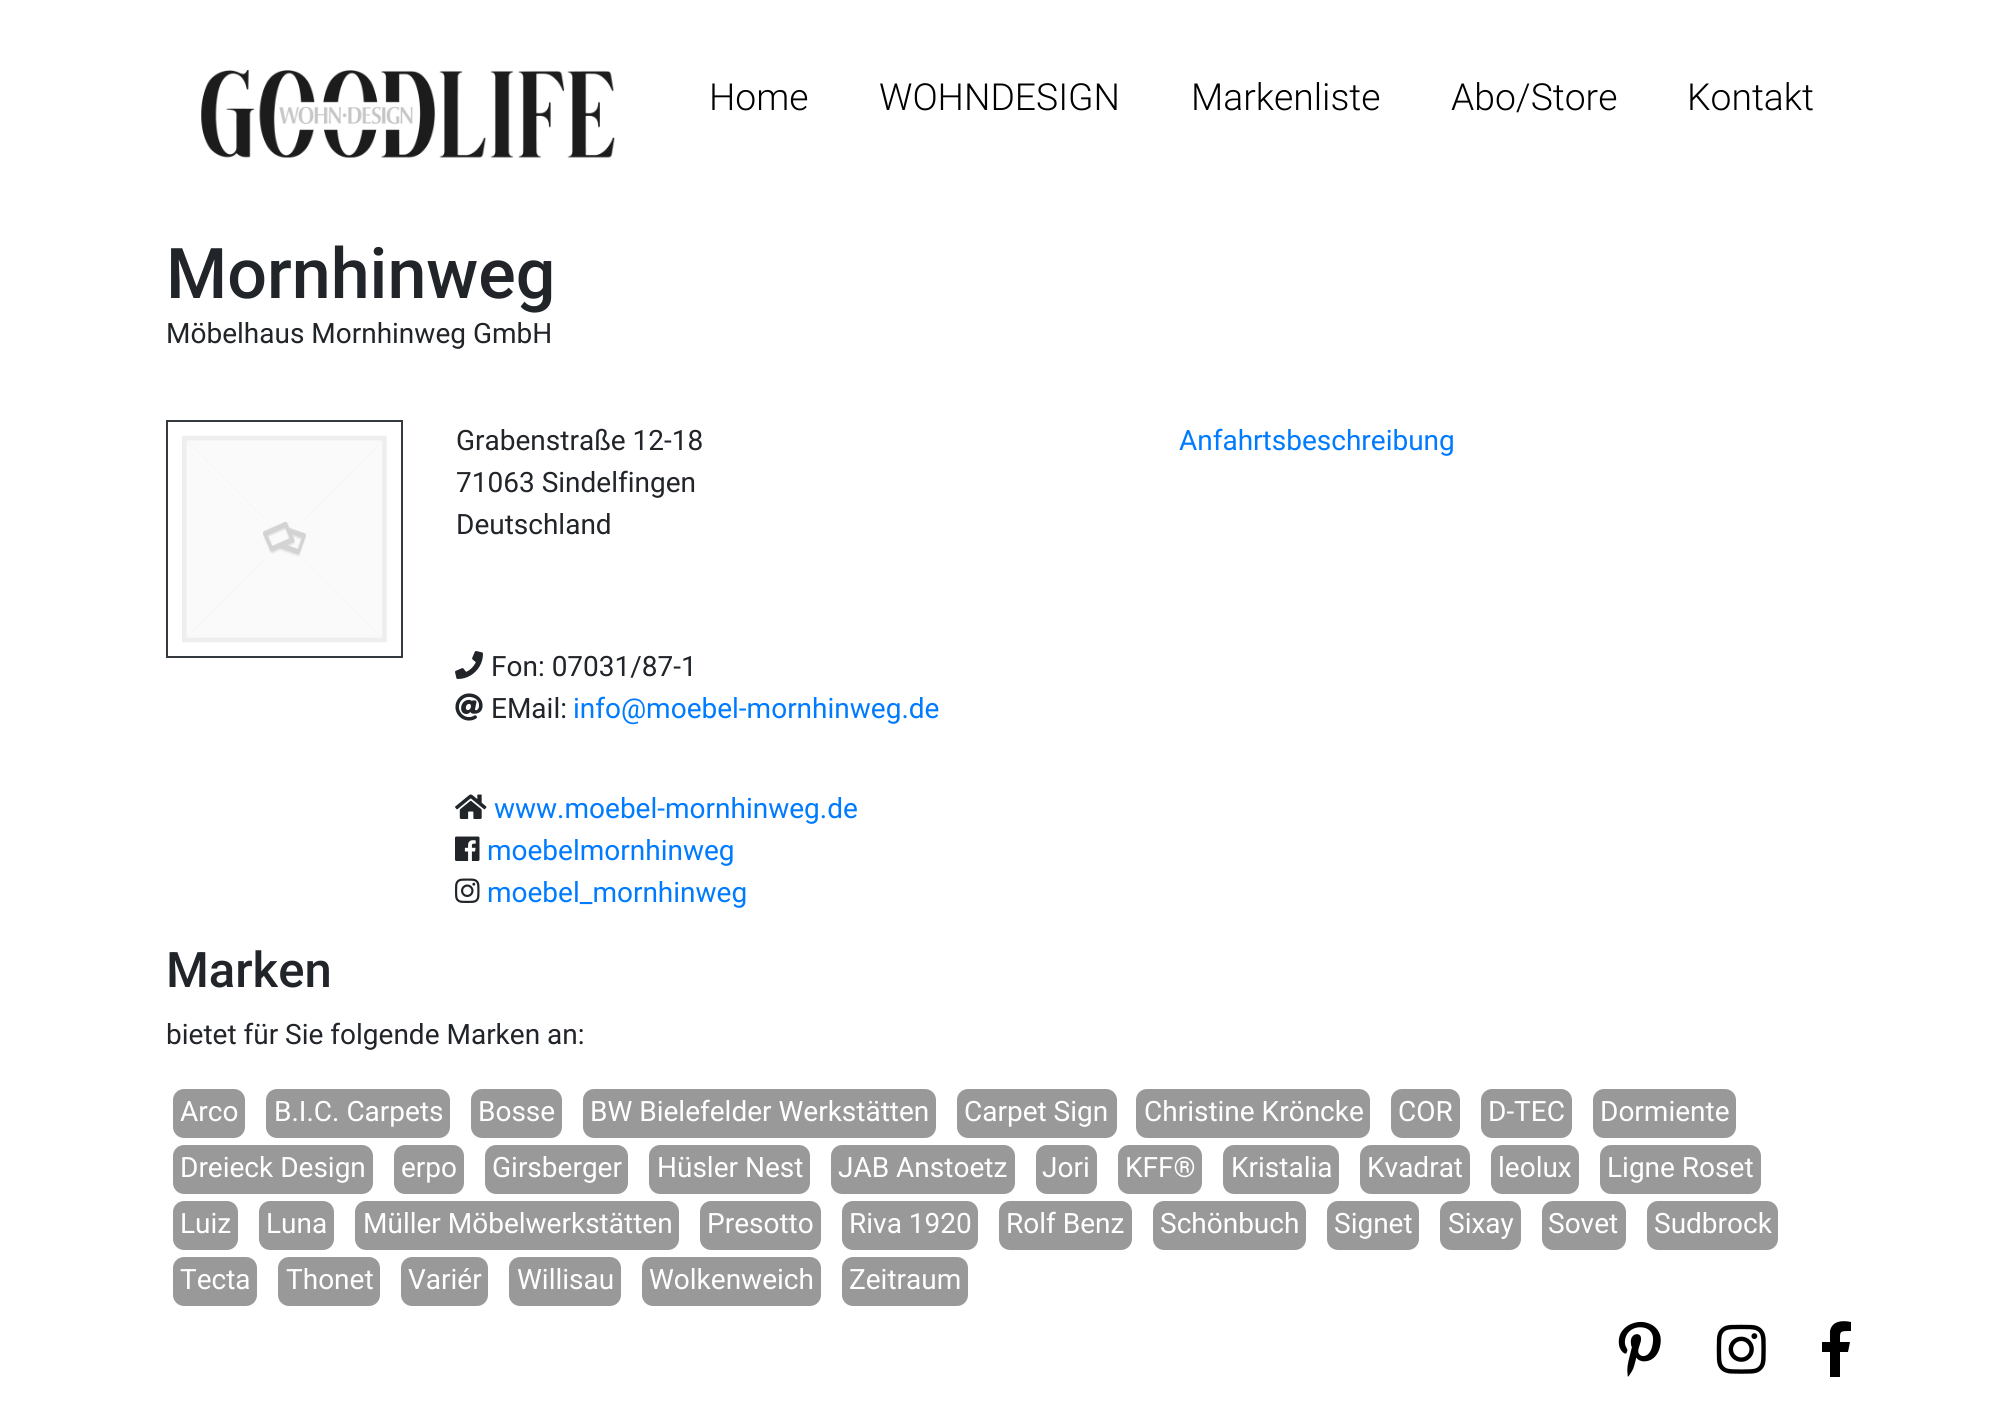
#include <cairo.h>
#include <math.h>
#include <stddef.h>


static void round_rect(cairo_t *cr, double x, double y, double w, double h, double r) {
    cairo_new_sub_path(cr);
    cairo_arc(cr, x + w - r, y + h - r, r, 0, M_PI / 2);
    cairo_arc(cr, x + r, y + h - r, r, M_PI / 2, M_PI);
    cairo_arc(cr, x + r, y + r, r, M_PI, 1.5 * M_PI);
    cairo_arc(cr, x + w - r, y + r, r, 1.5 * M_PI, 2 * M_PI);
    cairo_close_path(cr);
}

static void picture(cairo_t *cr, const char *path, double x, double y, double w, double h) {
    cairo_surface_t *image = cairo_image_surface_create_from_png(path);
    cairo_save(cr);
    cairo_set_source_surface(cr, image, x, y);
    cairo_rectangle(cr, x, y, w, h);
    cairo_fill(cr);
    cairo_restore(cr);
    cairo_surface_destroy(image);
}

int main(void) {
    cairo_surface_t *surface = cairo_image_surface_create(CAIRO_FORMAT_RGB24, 2015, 1420);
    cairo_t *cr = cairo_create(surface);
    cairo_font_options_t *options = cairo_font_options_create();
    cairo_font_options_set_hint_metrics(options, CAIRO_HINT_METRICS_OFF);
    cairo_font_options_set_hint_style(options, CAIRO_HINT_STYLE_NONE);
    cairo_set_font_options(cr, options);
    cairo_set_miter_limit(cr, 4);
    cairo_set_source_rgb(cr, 1, 1, 1);
    cairo_paint(cr);
    picture(cr, "img1.png", 201, 70, 414, 88);
    cairo_select_font_face(cr, "Roboto Light", CAIRO_FONT_SLANT_NORMAL, CAIRO_FONT_WEIGHT_NORMAL);
    cairo_set_font_size(cr, 37.25);
    cairo_set_source_rgb(cr, 0, 0, 0);
    cairo_move_to(cr, 709, 110);
    cairo_show_text(cr, "Home");
    cairo_move_to(cr, 879, 110);
    cairo_show_text(cr, "WOHNDESIGN");
    cairo_move_to(cr, 1191, 110);
    cairo_show_text(cr, "Markenliste");
    cairo_move_to(cr, 1451, 110);
    cairo_show_text(cr, "Abo/Store");
    cairo_move_to(cr, 1687, 110);
    cairo_show_text(cr, "Kontakt");
    cairo_select_font_face(cr, "Roboto Medium", CAIRO_FONT_SLANT_NORMAL, CAIRO_FONT_WEIGHT_NORMAL);
    cairo_set_font_size(cr, 70);
    cairo_set_source_rgb(cr, 0.129, 0.145, 0.161);
    cairo_move_to(cr, 166, 298);
    cairo_show_text(cr, "Mornhinweg");
    cairo_select_font_face(cr, "Roboto", CAIRO_FONT_SLANT_NORMAL, CAIRO_FONT_WEIGHT_NORMAL);
    cairo_set_font_size(cr, 28);
    cairo_move_to(cr, 166, 343);
    cairo_show_text(cr, "Möbelhaus Mornhinweg GmbH");
    cairo_rectangle(cr, 167, 421, 235, 236);
    cairo_set_source_rgb(cr, 0.204, 0.227, 0.251);
    cairo_stroke(cr);
    picture(cr, "img2.png", 182, 435, 205, 208);
    cairo_set_source_rgb(cr, 0.129, 0.145, 0.161);
    cairo_move_to(cr, 456, 450);
    cairo_show_text(cr, "Grabenstraße 12-18");
    cairo_move_to(cr, 456, 492);
    cairo_show_text(cr, "71063 Sindelfingen");
    cairo_move_to(cr, 456, 534);
    cairo_show_text(cr, "Deutschland");
    cairo_set_source_rgb(cr, 0, 0.482, 1);
    cairo_move_to(cr, 1179, 450);
    cairo_show_text(cr, "Anfahrtsbeschreibung");
    picture(cr, "img3.png", 455, 651, 28, 28);
    cairo_set_source_rgb(cr, 0.129, 0.145, 0.161);
    cairo_move_to(cr, 491, 676);
    cairo_show_text(cr, "Fon: 07031/87-1");
    picture(cr, "img4.png", 455, 693, 28, 28);
    cairo_move_to(cr, 491, 718);
    cairo_show_text(cr, "EMail:");
    cairo_set_source_rgb(cr, 0, 0.482, 1);
    cairo_move_to(cr, 573, 718);
    cairo_show_text(cr, "info@moebel-mornhinweg.de");
    picture(cr, "img5.png", 455, 794, 32, 25);
    cairo_move_to(cr, 494, 818);
    cairo_show_text(cr, "www.moebel-mornhinweg.de");
    picture(cr, "img6.png", 455, 836, 25, 25);
    cairo_move_to(cr, 487, 860);
    cairo_show_text(cr, "moebelmornhinweg");
    picture(cr, "img7.png", 455, 878, 25, 25);
    cairo_move_to(cr, 487, 902);
    cairo_show_text(cr, "moebel_mornhinweg");
    cairo_select_font_face(cr, "Roboto Medium", CAIRO_FONT_SLANT_NORMAL, CAIRO_FONT_WEIGHT_NORMAL);
    cairo_set_font_size(cr, 49);
    cairo_set_source_rgb(cr, 0.129, 0.145, 0.161);
    cairo_move_to(cr, 166, 987);
    cairo_show_text(cr, "Marken");
    cairo_select_font_face(cr, "Roboto", CAIRO_FONT_SLANT_NORMAL, CAIRO_FONT_WEIGHT_NORMAL);
    cairo_set_font_size(cr, 28);
    cairo_move_to(cr, 166, 1044);
    cairo_show_text(cr, "bietet für Sie folgende Marken an:");
    cairo_set_source_rgb(cr, 0.6, 0.6, 0.6);
    round_rect(cr, 173, 1089, 72, 49, 11);
    cairo_fill(cr);
    cairo_set_source_rgb(cr, 1, 1, 1);
    cairo_move_to(cr, 180, 1121);
    cairo_show_text(cr, "Arco");
    cairo_set_source_rgb(cr, 0.6, 0.6, 0.6);
    round_rect(cr, 266, 1089, 184, 49, 11);
    cairo_fill(cr);
    cairo_set_source_rgb(cr, 1, 1, 1);
    cairo_move_to(cr, 274, 1121);
    cairo_show_text(cr, "B.I.C. Carpets");
    cairo_set_source_rgb(cr, 0.6, 0.6, 0.6);
    round_rect(cr, 471, 1089, 91, 49, 11);
    cairo_fill(cr);
    cairo_set_source_rgb(cr, 1, 1, 1);
    cairo_move_to(cr, 478, 1121);
    cairo_show_text(cr, "Bosse");
    cairo_set_source_rgb(cr, 0.6, 0.6, 0.6);
    round_rect(cr, 583, 1089, 353, 49, 11);
    cairo_fill(cr);
    cairo_set_source_rgb(cr, 1, 1, 1);
    cairo_move_to(cr, 590, 1121);
    cairo_show_text(cr, "BW Bielefelder Werkstätten");
    cairo_set_source_rgb(cr, 0.6, 0.6, 0.6);
    round_rect(cr, 957, 1089, 160, 49, 11);
    cairo_fill(cr);
    cairo_set_source_rgb(cr, 1, 1, 1);
    cairo_move_to(cr, 964, 1121);
    cairo_show_text(cr, "Carpet Sign");
    cairo_set_source_rgb(cr, 0.6, 0.6, 0.6);
    round_rect(cr, 1136, 1089, 234, 49, 11);
    cairo_fill(cr);
    cairo_set_source_rgb(cr, 1, 1, 1);
    cairo_move_to(cr, 1144, 1121);
    cairo_show_text(cr, "Christine Kröncke");
    cairo_set_source_rgb(cr, 0.6, 0.6, 0.6);
    round_rect(cr, 1391, 1089, 69, 49, 11);
    cairo_fill(cr);
    cairo_set_source_rgb(cr, 1, 1, 1);
    cairo_move_to(cr, 1398, 1121);
    cairo_show_text(cr, "COR");
    cairo_set_source_rgb(cr, 0.6, 0.6, 0.6);
    round_rect(cr, 1481, 1089, 91, 49, 11);
    cairo_fill(cr);
    cairo_set_source_rgb(cr, 1, 1, 1);
    cairo_move_to(cr, 1488, 1121);
    cairo_show_text(cr, "D-TEC");
    cairo_set_source_rgb(cr, 0.6, 0.6, 0.6);
    round_rect(cr, 1593, 1089, 143, 49, 11);
    cairo_fill(cr);
    cairo_set_source_rgb(cr, 1, 1, 1);
    cairo_move_to(cr, 1600, 1121);
    cairo_show_text(cr, "Dormiente");
    cairo_set_source_rgb(cr, 0.6, 0.6, 0.6);
    round_rect(cr, 173, 1145, 200, 49, 11);
    cairo_fill(cr);
    cairo_set_source_rgb(cr, 1, 1, 1);
    cairo_move_to(cr, 180, 1177);
    cairo_show_text(cr, "Dreieck Design");
    cairo_set_source_rgb(cr, 0.6, 0.6, 0.6);
    round_rect(cr, 394, 1145, 70, 49, 11);
    cairo_fill(cr);
    cairo_set_source_rgb(cr, 1, 1, 1);
    cairo_move_to(cr, 401, 1177);
    cairo_show_text(cr, "erpo");
    cairo_set_source_rgb(cr, 0.6, 0.6, 0.6);
    round_rect(cr, 485, 1145, 143, 49, 11);
    cairo_fill(cr);
    cairo_set_source_rgb(cr, 1, 1, 1);
    cairo_move_to(cr, 492, 1177);
    cairo_show_text(cr, "Girsberger");
    cairo_set_source_rgb(cr, 0.6, 0.6, 0.6);
    round_rect(cr, 649, 1145, 161, 49, 11);
    cairo_fill(cr);
    cairo_set_source_rgb(cr, 1, 1, 1);
    cairo_move_to(cr, 657, 1177);
    cairo_show_text(cr, "Hüsler Nest");
    cairo_set_source_rgb(cr, 0.6, 0.6, 0.6);
    round_rect(cr, 831, 1145, 184, 49, 11);
    cairo_fill(cr);
    cairo_set_source_rgb(cr, 1, 1, 1);
    cairo_move_to(cr, 838, 1177);
    cairo_show_text(cr, "JAB Anstoetz");
    cairo_set_source_rgb(cr, 0.6, 0.6, 0.6);
    round_rect(cr, 1036, 1145, 61, 49, 11);
    cairo_fill(cr);
    cairo_set_source_rgb(cr, 1, 1, 1);
    cairo_move_to(cr, 1042, 1177);
    cairo_show_text(cr, "Jori");
    cairo_set_source_rgb(cr, 0.6, 0.6, 0.6);
    round_rect(cr, 1118, 1145, 84, 49, 11);
    cairo_fill(cr);
    cairo_set_source_rgb(cr, 1, 1, 1);
    cairo_move_to(cr, 1125, 1177);
    cairo_show_text(cr, "KFF®");
    cairo_set_source_rgb(cr, 0.6, 0.6, 0.6);
    round_rect(cr, 1223, 1145, 116, 49, 11);
    cairo_fill(cr);
    cairo_set_source_rgb(cr, 1, 1, 1);
    cairo_move_to(cr, 1231, 1177);
    cairo_show_text(cr, "Kristalia");
    cairo_set_source_rgb(cr, 0.6, 0.6, 0.6);
    round_rect(cr, 1360, 1145, 110, 49, 11);
    cairo_fill(cr);
    cairo_set_source_rgb(cr, 1, 1, 1);
    cairo_move_to(cr, 1367, 1177);
    cairo_show_text(cr, "Kvadrat");
    cairo_set_source_rgb(cr, 0.6, 0.6, 0.6);
    round_rect(cr, 1491, 1145, 88, 49, 11);
    cairo_fill(cr);
    cairo_set_source_rgb(cr, 1, 1, 1);
    cairo_move_to(cr, 1498, 1177);
    cairo_show_text(cr, "leolux");
    cairo_set_source_rgb(cr, 0.6, 0.6, 0.6);
    round_rect(cr, 1600, 1145, 161, 49, 11);
    cairo_fill(cr);
    cairo_set_source_rgb(cr, 1, 1, 1);
    cairo_move_to(cr, 1607, 1177);
    cairo_show_text(cr, "Ligne Roset");
    cairo_set_source_rgb(cr, 0.6, 0.6, 0.6);
    round_rect(cr, 173, 1201, 65, 49, 11);
    cairo_fill(cr);
    cairo_set_source_rgb(cr, 1, 1, 1);
    cairo_move_to(cr, 180, 1233);
    cairo_show_text(cr, "Luiz");
    cairo_set_source_rgb(cr, 0.6, 0.6, 0.6);
    round_rect(cr, 259, 1201, 75, 49, 11);
    cairo_fill(cr);
    cairo_set_source_rgb(cr, 1, 1, 1);
    cairo_move_to(cr, 266, 1233);
    cairo_show_text(cr, "Luna");
    cairo_set_source_rgb(cr, 0.6, 0.6, 0.6);
    round_rect(cr, 355, 1201, 324, 49, 11);
    cairo_fill(cr);
    cairo_set_source_rgb(cr, 1, 1, 1);
    cairo_move_to(cr, 363, 1233);
    cairo_show_text(cr, "Müller Möbelwerkstätten");
    cairo_set_source_rgb(cr, 0.6, 0.6, 0.6);
    round_rect(cr, 700, 1201, 121, 49, 11);
    cairo_fill(cr);
    cairo_set_source_rgb(cr, 1, 1, 1);
    cairo_move_to(cr, 707, 1233);
    cairo_show_text(cr, "Presotto");
    cairo_set_source_rgb(cr, 0.6, 0.6, 0.6);
    round_rect(cr, 842, 1201, 136, 49, 11);
    cairo_fill(cr);
    cairo_set_source_rgb(cr, 1, 1, 1);
    cairo_move_to(cr, 849, 1233);
    cairo_show_text(cr, "Riva 1920");
    cairo_set_source_rgb(cr, 0.6, 0.6, 0.6);
    round_rect(cr, 999, 1201, 133, 49, 11);
    cairo_fill(cr);
    cairo_set_source_rgb(cr, 1, 1, 1);
    cairo_move_to(cr, 1006, 1233);
    cairo_show_text(cr, "Rolf Benz");
    cairo_set_source_rgb(cr, 0.6, 0.6, 0.6);
    round_rect(cr, 1153, 1201, 153, 49, 11);
    cairo_fill(cr);
    cairo_set_source_rgb(cr, 1, 1, 1);
    cairo_move_to(cr, 1160, 1233);
    cairo_show_text(cr, "Schönbuch");
    cairo_set_source_rgb(cr, 0.6, 0.6, 0.6);
    round_rect(cr, 1327, 1201, 92, 49, 11);
    cairo_fill(cr);
    cairo_set_source_rgb(cr, 1, 1, 1);
    cairo_move_to(cr, 1334, 1233);
    cairo_show_text(cr, "Signet");
    cairo_set_source_rgb(cr, 0.6, 0.6, 0.6);
    round_rect(cr, 1440, 1201, 81, 49, 11);
    cairo_fill(cr);
    cairo_set_source_rgb(cr, 1, 1, 1);
    cairo_move_to(cr, 1448, 1233);
    cairo_show_text(cr, "Sixay");
    cairo_set_source_rgb(cr, 0.6, 0.6, 0.6);
    round_rect(cr, 1542, 1201, 84, 49, 11);
    cairo_fill(cr);
    cairo_set_source_rgb(cr, 1, 1, 1);
    cairo_move_to(cr, 1548, 1233);
    cairo_show_text(cr, "Sovet");
    cairo_set_source_rgb(cr, 0.6, 0.6, 0.6);
    round_rect(cr, 1647, 1201, 131, 49, 11);
    cairo_fill(cr);
    cairo_set_source_rgb(cr, 1, 1, 1);
    cairo_move_to(cr, 1654, 1233);
    cairo_show_text(cr, "Sudbrock");
    cairo_set_source_rgb(cr, 0.6, 0.6, 0.6);
    round_rect(cr, 173, 1257, 84, 49, 11);
    cairo_fill(cr);
    cairo_set_source_rgb(cr, 1, 1, 1);
    cairo_move_to(cr, 180, 1289);
    cairo_show_text(cr, "Tecta");
    cairo_set_source_rgb(cr, 0.6, 0.6, 0.6);
    round_rect(cr, 278, 1257, 102, 49, 11);
    cairo_fill(cr);
    cairo_set_source_rgb(cr, 1, 1, 1);
    cairo_move_to(cr, 286, 1289);
    cairo_show_text(cr, "Thonet");
    cairo_set_source_rgb(cr, 0.6, 0.6, 0.6);
    round_rect(cr, 401, 1257, 87, 49, 11);
    cairo_fill(cr);
    cairo_set_source_rgb(cr, 1, 1, 1);
    cairo_move_to(cr, 408, 1289);
    cairo_show_text(cr, "Variér");
    cairo_set_source_rgb(cr, 0.6, 0.6, 0.6);
    round_rect(cr, 509, 1257, 112, 49, 11);
    cairo_fill(cr);
    cairo_set_source_rgb(cr, 1, 1, 1);
    cairo_move_to(cr, 517, 1289);
    cairo_show_text(cr, "Willisau");
    cairo_set_source_rgb(cr, 0.6, 0.6, 0.6);
    round_rect(cr, 642, 1257, 179, 49, 11);
    cairo_fill(cr);
    cairo_set_source_rgb(cr, 1, 1, 1);
    cairo_move_to(cr, 649, 1289);
    cairo_show_text(cr, "Wolkenweich");
    cairo_set_source_rgb(cr, 0.6, 0.6, 0.6);
    round_rect(cr, 842, 1257, 126, 49, 11);
    cairo_fill(cr);
    cairo_set_source_rgb(cr, 1, 1, 1);
    cairo_move_to(cr, 849, 1289);
    cairo_show_text(cr, "Zeitraum");
    picture(cr, "img8.png", 1618, 1321, 43, 56);
    picture(cr, "img9.png", 1716, 1324, 50, 50);
    cairo_set_source_rgb(cr, 0, 0, 0);
    cairo_new_path(cr);
    cairo_move_to(cr, 1830, 1377);
    cairo_line_to(cr, 1830, 1352);
    cairo_line_to(cr, 1822, 1352);
    cairo_line_to(cr, 1822, 1342);
    cairo_line_to(cr, 1830, 1342);
    cairo_line_to(cr, 1830, 1331);
    cairo_curve_to(cr, 1832, 1321, 1842, 1320, 1851, 1322);
    cairo_line_to(cr, 1851, 1331);
    cairo_curve_to(cr, 1839, 1331, 1840, 1331, 1840, 1342);
    cairo_line_to(cr, 1850, 1342);
    cairo_line_to(cr, 1848, 1352);
    cairo_line_to(cr, 1840, 1352);
    cairo_line_to(cr, 1840, 1377);
    cairo_close_path(cr);
    cairo_fill(cr);
    cairo_surface_write_to_png(surface, "page.png");
    cairo_font_options_destroy(options);
    cairo_destroy(cr);
    cairo_surface_destroy(surface);
    return 0;
}
